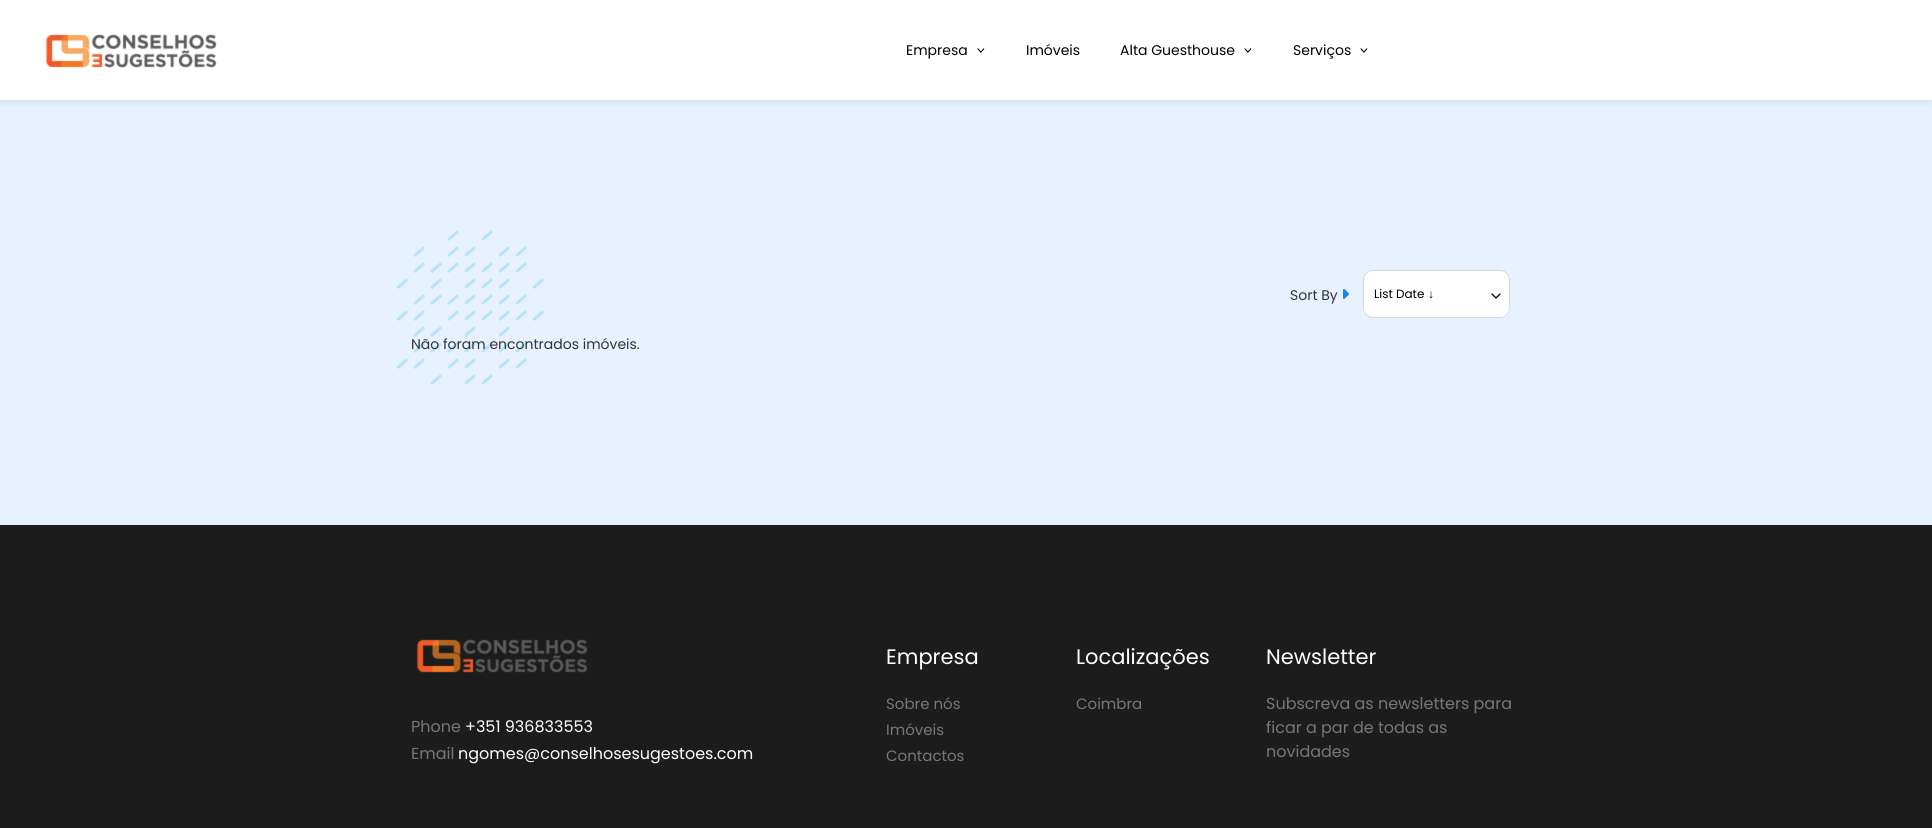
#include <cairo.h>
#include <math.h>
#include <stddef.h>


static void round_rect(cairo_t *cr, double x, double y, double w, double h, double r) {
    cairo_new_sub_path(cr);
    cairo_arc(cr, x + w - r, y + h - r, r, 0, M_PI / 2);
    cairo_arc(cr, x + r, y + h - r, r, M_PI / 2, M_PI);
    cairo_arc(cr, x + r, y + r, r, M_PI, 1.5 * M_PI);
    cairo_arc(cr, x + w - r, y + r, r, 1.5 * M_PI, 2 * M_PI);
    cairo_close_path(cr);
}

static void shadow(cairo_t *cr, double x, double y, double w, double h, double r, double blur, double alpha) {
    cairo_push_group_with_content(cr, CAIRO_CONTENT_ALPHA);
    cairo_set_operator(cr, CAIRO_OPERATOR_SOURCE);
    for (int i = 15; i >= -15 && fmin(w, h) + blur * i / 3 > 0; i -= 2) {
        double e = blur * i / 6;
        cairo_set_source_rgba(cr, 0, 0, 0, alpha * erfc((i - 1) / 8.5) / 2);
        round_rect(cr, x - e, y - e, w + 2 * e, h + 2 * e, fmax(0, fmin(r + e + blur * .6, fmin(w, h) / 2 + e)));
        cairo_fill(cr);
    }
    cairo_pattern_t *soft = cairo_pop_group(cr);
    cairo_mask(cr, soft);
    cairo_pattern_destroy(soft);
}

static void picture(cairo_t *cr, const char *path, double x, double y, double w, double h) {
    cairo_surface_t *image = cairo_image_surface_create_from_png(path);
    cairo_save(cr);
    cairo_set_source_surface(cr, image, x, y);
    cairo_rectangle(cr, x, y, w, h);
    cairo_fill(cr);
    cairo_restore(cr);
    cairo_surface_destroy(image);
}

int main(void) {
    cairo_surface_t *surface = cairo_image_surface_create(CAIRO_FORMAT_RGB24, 1932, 828);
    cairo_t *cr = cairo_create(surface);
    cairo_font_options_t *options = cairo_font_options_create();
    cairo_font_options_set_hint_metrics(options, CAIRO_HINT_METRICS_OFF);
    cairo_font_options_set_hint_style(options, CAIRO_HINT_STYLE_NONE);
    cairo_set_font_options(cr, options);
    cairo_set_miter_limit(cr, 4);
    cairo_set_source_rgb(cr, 0.91, 0.945, 1);
    cairo_paint(cr);
    cairo_set_source_rgb(cr, 0, 0, 0);
    shadow(cr, 0, 3, 1932, 100, 0, 2.5, 0.07);
    cairo_set_source_rgb(cr, 1, 1, 1);
    cairo_rectangle(cr, 0, 0, 1932, 100);
    cairo_fill(cr);
    picture(cr, "img1.png", 45, 34, 172, 34);
    cairo_select_font_face(cr, "Poppins", CAIRO_FONT_SLANT_NORMAL, CAIRO_FONT_WEIGHT_NORMAL);
    cairo_set_font_size(cr, 14);
    cairo_set_source_rgb(cr, 0, 0, 0);
    cairo_move_to(cr, 906, 55);
    cairo_show_text(cr, "Empresa");
    cairo_save(cr);
    cairo_translate(cr, 986, 54);
    cairo_rotate(cr, -90 * M_PI / 180);
    cairo_move_to(cr, 0, 0);
    cairo_show_text(cr, "<");
    cairo_restore(cr);
    cairo_move_to(cr, 1026, 55);
    cairo_show_text(cr, "Imóveis");
    cairo_move_to(cr, 1120, 55);
    cairo_show_text(cr, "Alta Guesthouse");
    cairo_save(cr);
    cairo_translate(cr, 1253, 54);
    cairo_rotate(cr, -90 * M_PI / 180);
    cairo_move_to(cr, 0, 0);
    cairo_show_text(cr, "<");
    cairo_restore(cr);
    cairo_move_to(cr, 1293, 55);
    cairo_show_text(cr, "Serviços");
    cairo_save(cr);
    cairo_translate(cr, 1369, 54);
    cairo_rotate(cr, -90 * M_PI / 180);
    cairo_move_to(cr, 0, 0);
    cairo_show_text(cr, "<");
    cairo_restore(cr);
    picture(cr, "img2.png", 396, 230, 148, 155);
    cairo_set_source_rgb(cr, 0.2, 0.2, 0.2);
    cairo_move_to(cr, 1290, 300);
    cairo_show_text(cr, "Sort By");
    picture(cr, "img3.png", 1343, 289, 6, 10);
    cairo_set_source_rgb(cr, 1, 1, 1);
    round_rect(cr, 1363.5, 270.5, 146, 47, 9.5);
    cairo_fill_preserve(cr);
    cairo_set_source_rgb(cr, 0.847, 0.847, 0.847);
    cairo_set_line_width(cr, 1);
    cairo_stroke(cr);
    cairo_set_font_size(cr, 12);
    cairo_set_source_rgb(cr, 0, 0, 0);
    cairo_move_to(cr, 1374, 298);
    cairo_show_text(cr, "List Date");
    cairo_select_font_face(cr, "Liberation Sans", CAIRO_FONT_SLANT_NORMAL, CAIRO_FONT_WEIGHT_NORMAL);
    cairo_move_to(cr, 1428, 298);
    cairo_show_text(cr, "↓");
    cairo_new_path(cr);
    cairo_move_to(cr, 1492, 294);
    cairo_line_to(cr, 1496, 298);
    cairo_line_to(cr, 1500, 294);
    cairo_set_line_width(cr, 1.3);
    cairo_set_line_cap(cr, CAIRO_LINE_CAP_ROUND);
    cairo_set_line_join(cr, CAIRO_LINE_JOIN_ROUND);
    cairo_stroke(cr);
    cairo_select_font_face(cr, "Poppins", CAIRO_FONT_SLANT_NORMAL, CAIRO_FONT_WEIGHT_NORMAL);
    cairo_set_font_size(cr, 14);
    cairo_set_source_rgb(cr, 0.2, 0.2, 0.2);
    cairo_move_to(cr, 411, 349);
    cairo_show_text(cr, "Não foram encontrados imóveis.");
    cairo_set_source_rgb(cr, 0.11, 0.11, 0.11);
    cairo_rectangle(cr, 0, 525, 1932, 303);
    cairo_fill(cr);
    picture(cr, "img4.png", 416, 639, 172, 34);
    cairo_set_font_size(cr, 16);
    cairo_set_source_rgb(cr, 0.467, 0.467, 0.467);
    cairo_move_to(cr, 411, 732);
    cairo_show_text(cr, "Phone");
    cairo_set_source_rgb(cr, 1, 1, 1);
    cairo_move_to(cr, 465, 732);
    cairo_show_text(cr, "+351 936833553");
    cairo_set_source_rgb(cr, 0.467, 0.467, 0.467);
    cairo_move_to(cr, 411, 759);
    cairo_show_text(cr, "Email");
    cairo_set_source_rgb(cr, 1, 1, 1);
    cairo_move_to(cr, 458, 759);
    cairo_show_text(cr, "ngomes@conselhosesugestoes.com");
    cairo_set_font_size(cr, 21);
    cairo_move_to(cr, 886, 664);
    cairo_show_text(cr, "Empresa");
    cairo_set_font_size(cr, 15);
    cairo_set_source_rgb(cr, 0.467, 0.467, 0.467);
    cairo_move_to(cr, 886, 709);
    cairo_show_text(cr, "Sobre nós");
    cairo_move_to(cr, 886, 735);
    cairo_show_text(cr, "Imóveis");
    cairo_move_to(cr, 886, 761);
    cairo_show_text(cr, "Contactos");
    cairo_set_font_size(cr, 21);
    cairo_set_source_rgb(cr, 1, 1, 1);
    cairo_move_to(cr, 1076, 664);
    cairo_show_text(cr, "Localizações");
    cairo_set_font_size(cr, 15);
    cairo_set_source_rgb(cr, 0.467, 0.467, 0.467);
    cairo_move_to(cr, 1076, 709);
    cairo_show_text(cr, "Coimbra");
    cairo_set_font_size(cr, 21);
    cairo_set_source_rgb(cr, 1, 1, 1);
    cairo_move_to(cr, 1266, 664);
    cairo_show_text(cr, "Newsletter");
    cairo_set_font_size(cr, 16);
    cairo_set_source_rgb(cr, 0.467, 0.467, 0.467);
    cairo_move_to(cr, 1266, 709);
    cairo_show_text(cr, "Subscreva as newsletters para");
    cairo_move_to(cr, 1266, 733);
    cairo_show_text(cr, "ficar a par de todas as");
    cairo_move_to(cr, 1266, 757);
    cairo_show_text(cr, "novidades");
    cairo_surface_write_to_png(surface, "page.png");
    cairo_font_options_destroy(options);
    cairo_destroy(cr);
    cairo_surface_destroy(surface);
    return 0;
}
